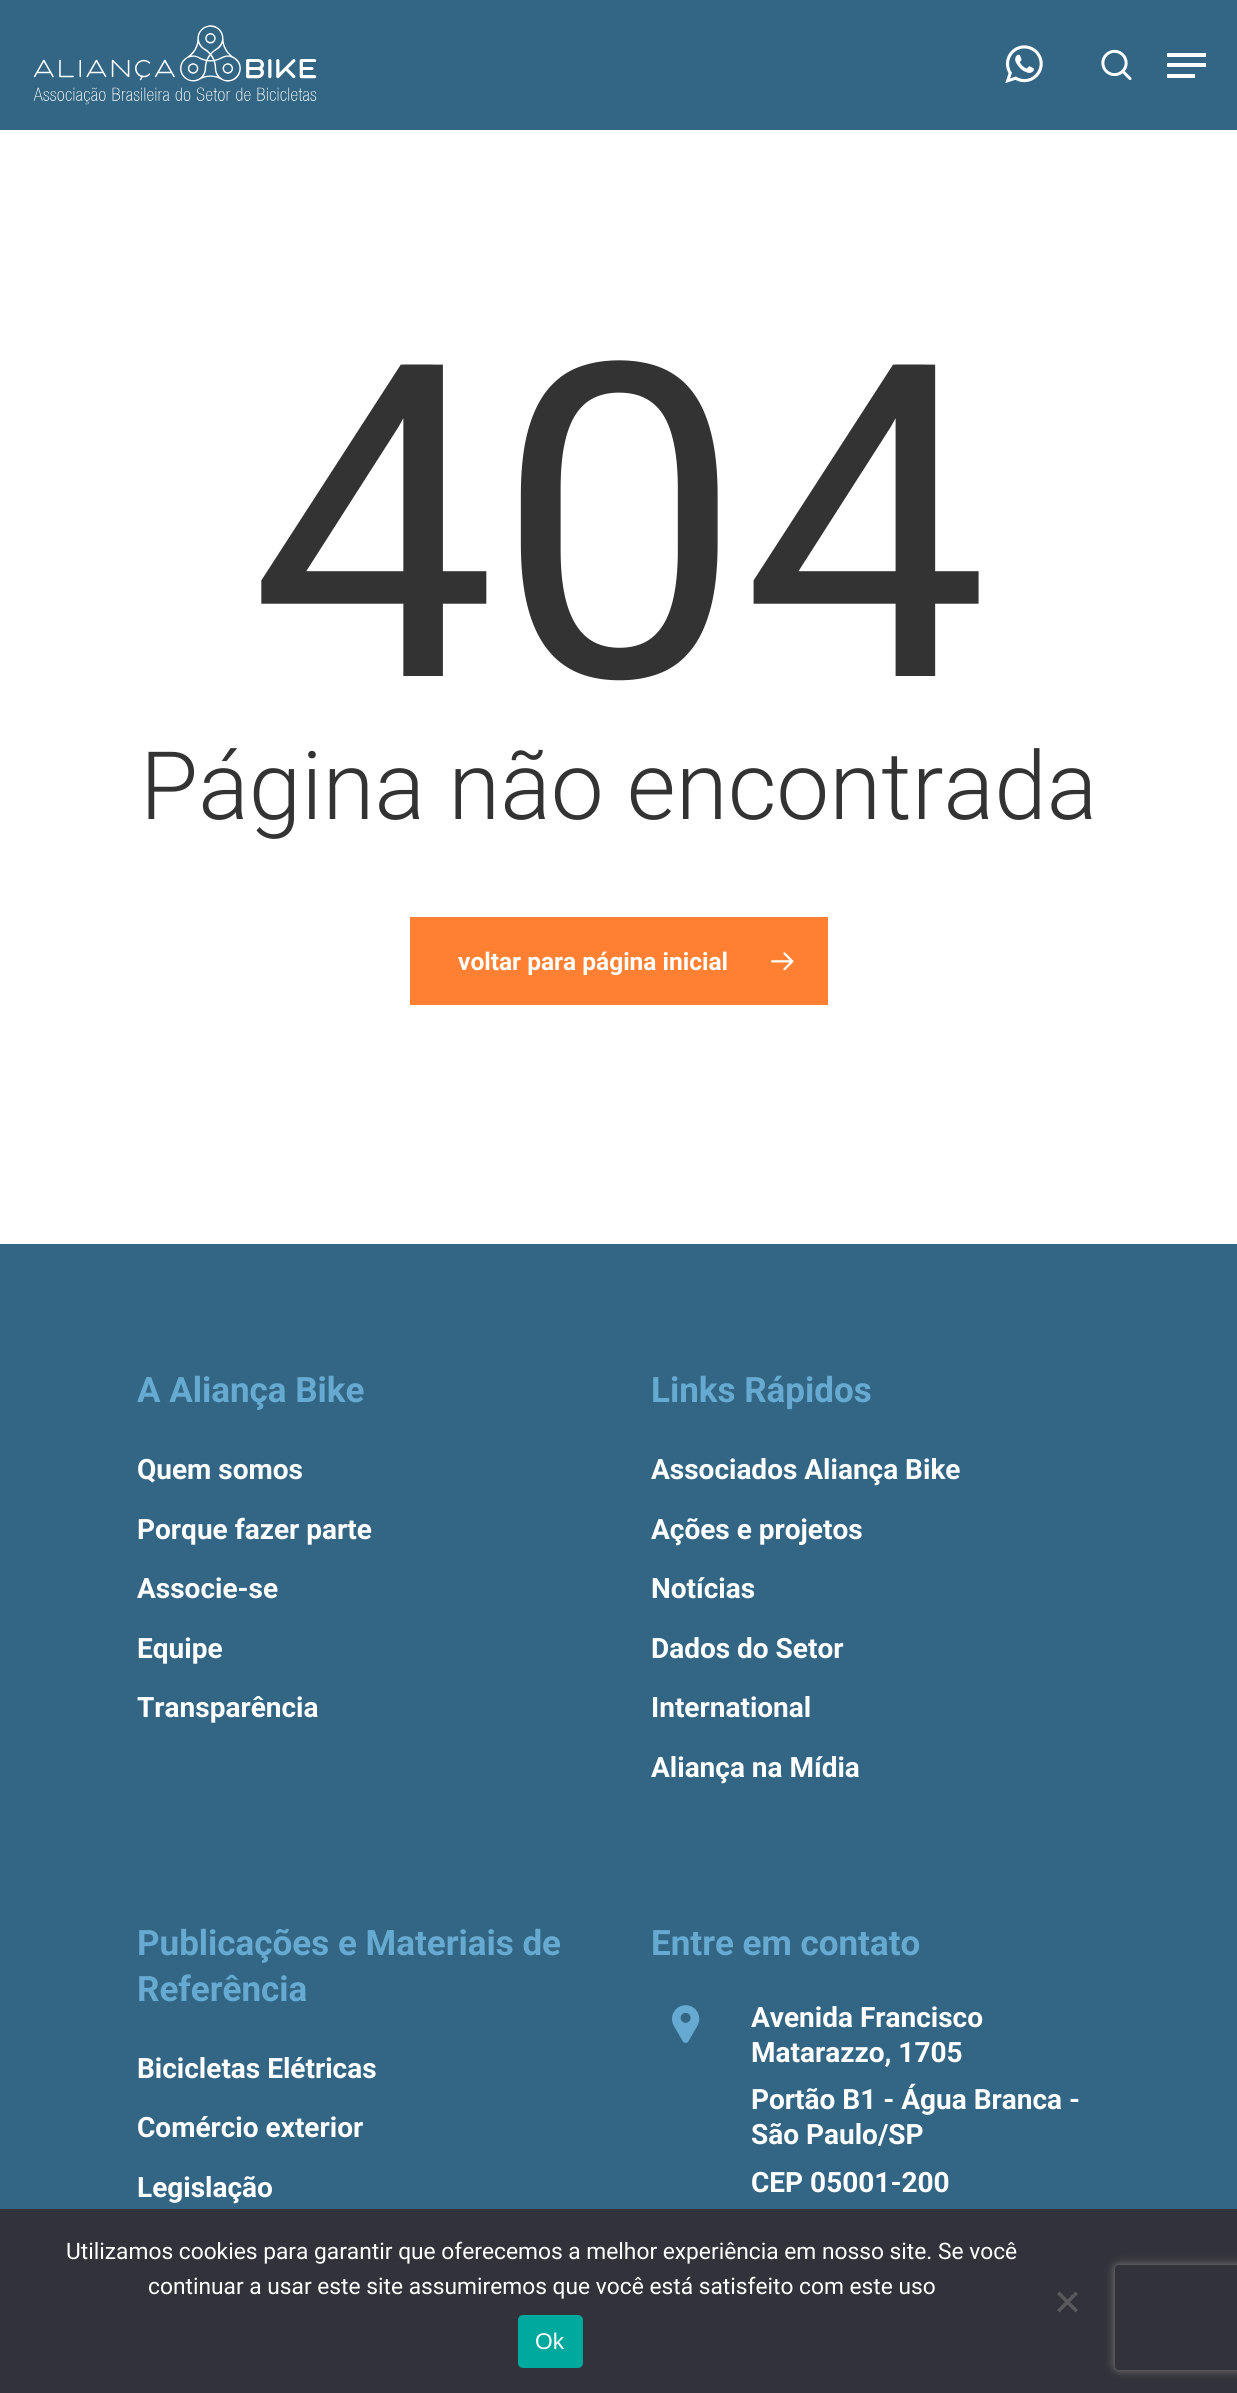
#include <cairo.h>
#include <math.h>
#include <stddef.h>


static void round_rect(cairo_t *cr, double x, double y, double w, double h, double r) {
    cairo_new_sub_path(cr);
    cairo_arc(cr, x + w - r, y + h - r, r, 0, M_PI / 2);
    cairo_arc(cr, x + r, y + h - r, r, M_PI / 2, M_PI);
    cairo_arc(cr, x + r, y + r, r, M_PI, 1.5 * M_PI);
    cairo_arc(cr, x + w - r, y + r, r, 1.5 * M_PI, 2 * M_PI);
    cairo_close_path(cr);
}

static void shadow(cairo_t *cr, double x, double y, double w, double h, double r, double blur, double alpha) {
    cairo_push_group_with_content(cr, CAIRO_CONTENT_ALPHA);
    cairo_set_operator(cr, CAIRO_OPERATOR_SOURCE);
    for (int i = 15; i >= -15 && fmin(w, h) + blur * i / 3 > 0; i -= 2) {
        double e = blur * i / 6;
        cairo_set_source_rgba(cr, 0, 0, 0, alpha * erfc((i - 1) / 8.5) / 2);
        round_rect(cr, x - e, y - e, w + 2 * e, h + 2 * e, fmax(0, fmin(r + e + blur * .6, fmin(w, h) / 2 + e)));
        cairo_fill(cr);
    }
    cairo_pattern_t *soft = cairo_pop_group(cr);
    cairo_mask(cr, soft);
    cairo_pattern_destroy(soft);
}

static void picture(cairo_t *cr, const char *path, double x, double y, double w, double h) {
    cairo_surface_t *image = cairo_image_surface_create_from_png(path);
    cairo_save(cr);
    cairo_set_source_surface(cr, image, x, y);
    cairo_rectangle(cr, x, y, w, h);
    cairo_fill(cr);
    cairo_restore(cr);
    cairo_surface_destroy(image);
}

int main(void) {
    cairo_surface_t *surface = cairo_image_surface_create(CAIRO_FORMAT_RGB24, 1237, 2393);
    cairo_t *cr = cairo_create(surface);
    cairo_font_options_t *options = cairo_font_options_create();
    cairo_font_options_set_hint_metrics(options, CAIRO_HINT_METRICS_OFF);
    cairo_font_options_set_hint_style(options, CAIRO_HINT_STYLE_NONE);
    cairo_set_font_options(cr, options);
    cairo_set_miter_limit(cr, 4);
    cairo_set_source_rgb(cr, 1, 1, 1);
    cairo_paint(cr);
    cairo_set_source_rgb(cr, 0.2, 0.4, 0.518);
    cairo_rectangle(cr, 0, 0, 1237, 130);
    cairo_fill(cr);
    picture(cr, "img1.png", 33, 25, 284, 80);
    picture(cr, "img2.png", 1005, 45, 38, 38);
    picture(cr, "img3.png", 1101, 49, 31, 32);
    cairo_set_source_rgb(cr, 1, 1, 1);
    cairo_rectangle(cr, 1167, 53, 39, 4);
    cairo_fill(cr);
    cairo_rectangle(cr, 1167, 74, 28, 4);
    cairo_fill(cr);
    cairo_rectangle(cr, 1167, 63, 39, 4);
    cairo_fill(cr);
    cairo_select_font_face(cr, "Roboto", CAIRO_FONT_SLANT_NORMAL, CAIRO_FONT_WEIGHT_NORMAL);
    cairo_set_font_size(cr, 438);
    cairo_set_source_rgb(cr, 0.2, 0.2, 0.2);
    cairo_move_to(cr, 250, 676);
    cairo_show_text(cr, "404");
    cairo_select_font_face(cr, "Roboto Light", CAIRO_FONT_SLANT_NORMAL, CAIRO_FONT_WEIGHT_NORMAL);
    cairo_set_font_size(cr, 94.5);
    cairo_move_to(cr, 140, 819);
    cairo_show_text(cr, "Página não encontrada");
    cairo_set_source_rgb(cr, 1, 0.502, 0.2);
    cairo_rectangle(cr, 410, 917, 418, 88);
    cairo_fill(cr);
    cairo_select_font_face(cr, "Roboto", CAIRO_FONT_SLANT_NORMAL, CAIRO_FONT_WEIGHT_BOLD);
    cairo_set_font_size(cr, 24.5);
    cairo_set_source_rgb(cr, 1, 1, 1);
    cairo_move_to(cr, 458, 970);
    cairo_show_text(cr, "voltar para página inicial");
    picture(cr, "img4.png", 771, 952, 23, 19);
    cairo_set_source_rgb(cr, 0.2, 0.4, 0.518);
    cairo_rectangle(cr, 0, 1244, 1237, 965);
    cairo_fill(cr);
    cairo_set_font_size(cr, 35);
    cairo_set_source_rgb(cr, 0.4, 0.667, 0.82);
    cairo_move_to(cr, 137, 1402);
    cairo_show_text(cr, "A Aliança Bike");
    cairo_set_font_size(cr, 28);
    cairo_set_source_rgb(cr, 1, 1, 1);
    cairo_move_to(cr, 137, 1479);
    cairo_show_text(cr, "Quem somos");
    cairo_move_to(cr, 137, 1539);
    cairo_show_text(cr, "Porque fazer parte");
    cairo_move_to(cr, 137, 1598);
    cairo_show_text(cr, "Associe-se");
    cairo_move_to(cr, 137, 1658);
    cairo_show_text(cr, "Equipe");
    cairo_move_to(cr, 137, 1717);
    cairo_show_text(cr, "Transparência");
    cairo_set_font_size(cr, 35);
    cairo_set_source_rgb(cr, 0.4, 0.667, 0.82);
    cairo_move_to(cr, 651, 1402);
    cairo_show_text(cr, "Links Rápidos");
    cairo_set_font_size(cr, 28);
    cairo_set_source_rgb(cr, 1, 1, 1);
    cairo_move_to(cr, 651, 1479);
    cairo_show_text(cr, "Associados Aliança Bike");
    cairo_move_to(cr, 651, 1539);
    cairo_show_text(cr, "Ações e projetos");
    cairo_move_to(cr, 651, 1598);
    cairo_show_text(cr, "Notícias");
    cairo_move_to(cr, 651, 1658);
    cairo_show_text(cr, "Dados do Setor");
    cairo_move_to(cr, 651, 1717);
    cairo_show_text(cr, "International");
    cairo_move_to(cr, 651, 1777);
    cairo_show_text(cr, "Aliança na Mídia");
    cairo_set_font_size(cr, 35);
    cairo_set_source_rgb(cr, 0.4, 0.667, 0.82);
    cairo_move_to(cr, 137, 1955);
    cairo_show_text(cr, "Publicações e Materiais de");
    cairo_move_to(cr, 137, 2001);
    cairo_show_text(cr, "Referência");
    cairo_set_font_size(cr, 28);
    cairo_set_source_rgb(cr, 1, 1, 1);
    cairo_move_to(cr, 137, 2078);
    cairo_show_text(cr, "Bicicletas Elétricas");
    cairo_move_to(cr, 137, 2137);
    cairo_show_text(cr, "Comércio exterior");
    cairo_move_to(cr, 137, 2197);
    cairo_show_text(cr, "Legislação");
    cairo_set_font_size(cr, 35);
    cairo_set_source_rgb(cr, 0.4, 0.667, 0.82);
    cairo_move_to(cr, 651, 1955);
    cairo_show_text(cr, "Entre em contato");
    picture(cr, "img5.png", 672, 2005, 28, 38);
    cairo_set_font_size(cr, 28);
    cairo_set_source_rgb(cr, 1, 1, 1);
    cairo_move_to(cr, 751, 2027);
    cairo_show_text(cr, "Avenida Francisco");
    cairo_move_to(cr, 751, 2062);
    cairo_show_text(cr, "Matarazzo, 1705");
    cairo_move_to(cr, 751, 2109);
    cairo_show_text(cr, "Portão B1 - Água Branca -");
    cairo_move_to(cr, 751, 2144);
    cairo_show_text(cr, "São Paulo/SP");
    cairo_move_to(cr, 751, 2192);
    cairo_show_text(cr, "CEP 05001-200");
    cairo_set_source_rgb(cr, 0.196, 0.196, 0.227);
    cairo_rectangle(cr, 0, 2209, 1237, 184);
    cairo_fill(cr);
    cairo_select_font_face(cr, "Roboto", CAIRO_FONT_SLANT_NORMAL, CAIRO_FONT_WEIGHT_NORMAL);
    cairo_set_font_size(cr, 22.75);
    cairo_set_source_rgb(cr, 1, 1, 1);
    cairo_move_to(cr, 66, 2259);
    cairo_show_text(cr, "Utilizamos cookies para garantir que oferecemos a melhor experiência em nosso site. Se você");
    cairo_move_to(cr, 148, 2294);
    cairo_show_text(cr, "continuar a usar este site assumiremos que você está satisfeito com este uso");
    cairo_set_source_rgb(cr, 0.349, 0.349, 0.365);
    cairo_new_path(cr);
    cairo_move_to(cr, 1075.5, 2291.5);
    cairo_line_to(cr, 1078, 2294);
    cairo_line_to(cr, 1059.5, 2312.5);
    cairo_line_to(cr, 1057, 2310);
    cairo_close_path(cr);
    cairo_fill(cr);
    cairo_new_path(cr);
    cairo_move_to(cr, 1057, 2294);
    cairo_line_to(cr, 1059.5, 2291.5);
    cairo_line_to(cr, 1078, 2310);
    cairo_line_to(cr, 1075.5, 2312.5);
    cairo_close_path(cr);
    cairo_fill(cr);
    cairo_set_source_rgb(cr, 0, 0.663, 0.616);
    round_rect(cr, 518, 2315, 65, 53, 5);
    cairo_fill(cr);
    cairo_select_font_face(cr, "Liberation Sans", CAIRO_FONT_SLANT_NORMAL, CAIRO_FONT_WEIGHT_NORMAL);
    cairo_set_source_rgb(cr, 1, 1, 1);
    cairo_move_to(cr, 535, 2349);
    cairo_show_text(cr, "Ok");
    cairo_save(cr);
    cairo_set_fill_rule(cr, CAIRO_FILL_RULE_EVEN_ODD);
    cairo_new_path(cr);
    cairo_move_to(cr, 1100, 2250);
    cairo_line_to(cr, 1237, 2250);
    cairo_line_to(cr, 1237, 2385);
    cairo_line_to(cr, 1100, 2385);
    cairo_close_path(cr);
    cairo_move_to(cr, 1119, 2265);
    cairo_line_to(cr, 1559, 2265);
    cairo_curve_to(cr, 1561, 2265, 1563, 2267, 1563, 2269);
    cairo_line_to(cr, 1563, 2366);
    cairo_curve_to(cr, 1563, 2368, 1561, 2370, 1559, 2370);
    cairo_line_to(cr, 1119, 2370);
    cairo_curve_to(cr, 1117, 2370, 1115, 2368, 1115, 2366);
    cairo_line_to(cr, 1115, 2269);
    cairo_curve_to(cr, 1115, 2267, 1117, 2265, 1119, 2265);
    cairo_close_path(cr);
    cairo_clip(cr);
    cairo_set_source_rgb(cr, 0.502, 0.502, 0.502);
    shadow(cr, 1115, 2265, 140, 105, 4, 4.5, 1);
    cairo_restore(cr);
    cairo_surface_write_to_png(surface, "page.png");
    cairo_font_options_destroy(options);
    cairo_destroy(cr);
    cairo_surface_destroy(surface);
    return 0;
}
